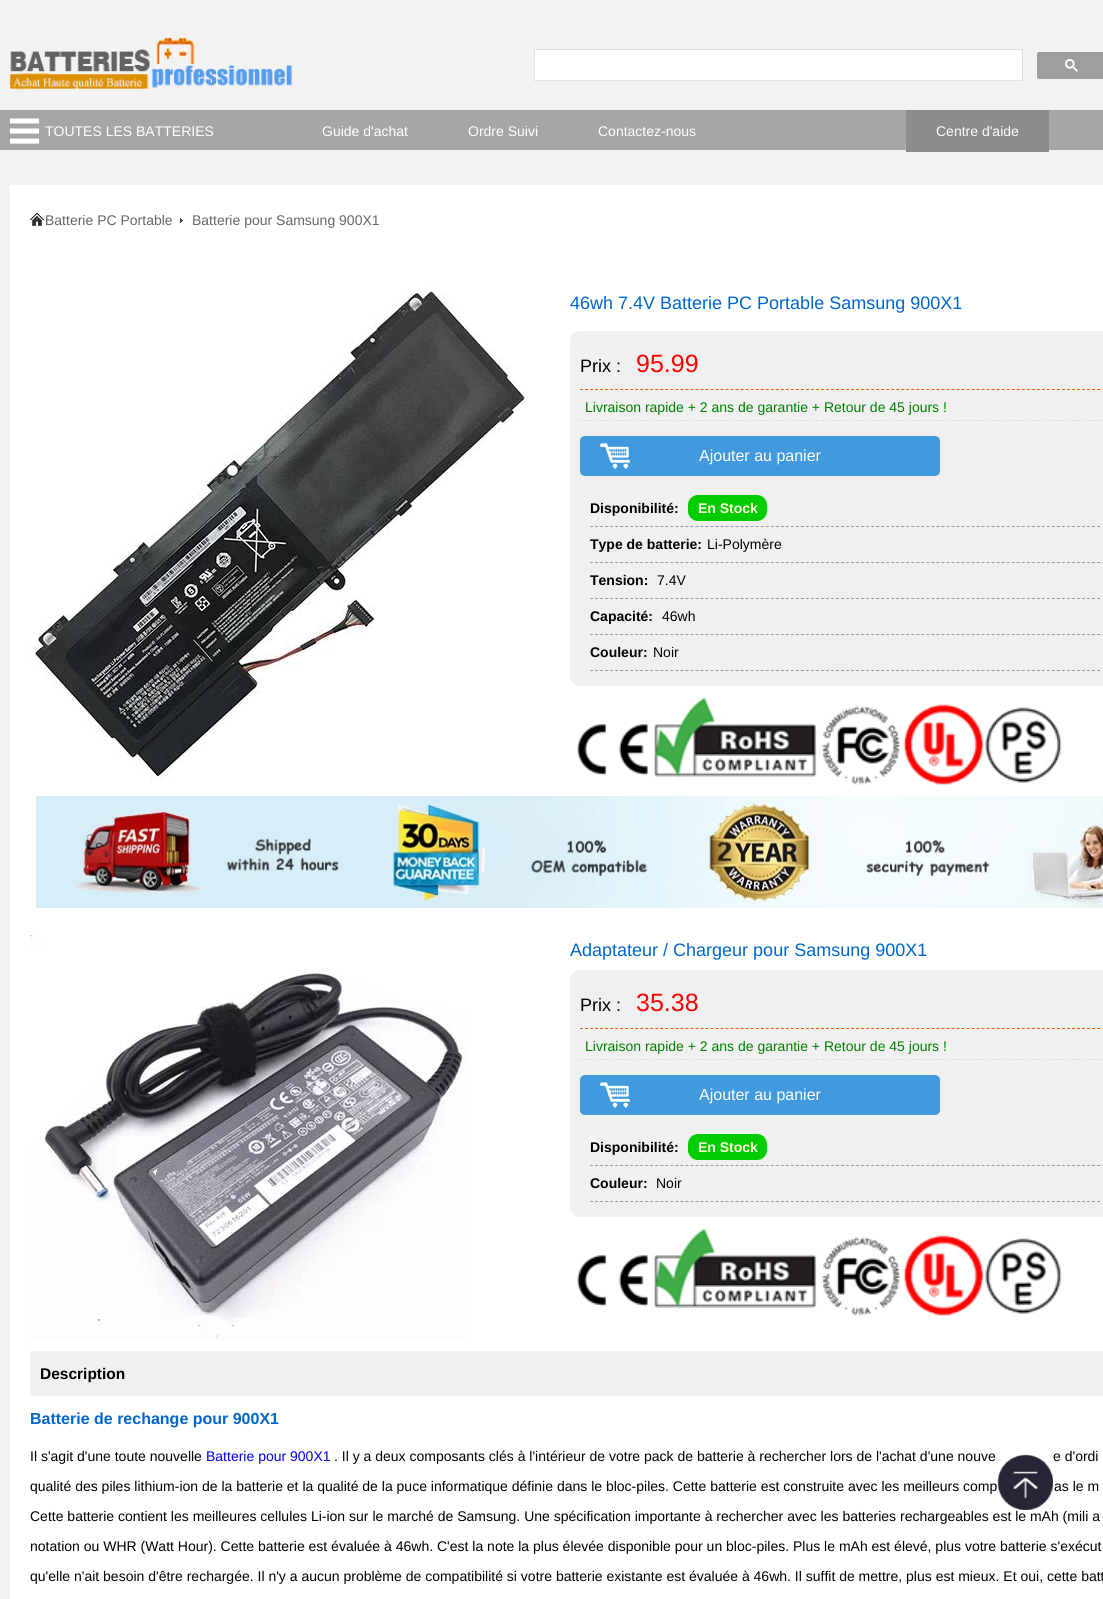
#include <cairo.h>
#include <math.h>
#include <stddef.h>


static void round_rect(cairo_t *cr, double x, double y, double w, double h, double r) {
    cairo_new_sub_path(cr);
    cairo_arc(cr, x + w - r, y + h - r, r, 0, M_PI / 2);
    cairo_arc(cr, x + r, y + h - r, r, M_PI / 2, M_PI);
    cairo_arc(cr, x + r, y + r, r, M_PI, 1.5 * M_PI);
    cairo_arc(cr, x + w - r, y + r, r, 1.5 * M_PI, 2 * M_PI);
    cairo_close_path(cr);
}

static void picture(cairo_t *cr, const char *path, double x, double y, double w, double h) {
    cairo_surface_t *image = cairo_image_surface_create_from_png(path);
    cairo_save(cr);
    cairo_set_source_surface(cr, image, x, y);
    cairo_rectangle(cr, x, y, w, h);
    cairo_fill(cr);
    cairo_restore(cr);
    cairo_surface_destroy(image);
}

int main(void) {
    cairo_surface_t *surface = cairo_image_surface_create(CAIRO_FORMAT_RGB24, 1103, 1599);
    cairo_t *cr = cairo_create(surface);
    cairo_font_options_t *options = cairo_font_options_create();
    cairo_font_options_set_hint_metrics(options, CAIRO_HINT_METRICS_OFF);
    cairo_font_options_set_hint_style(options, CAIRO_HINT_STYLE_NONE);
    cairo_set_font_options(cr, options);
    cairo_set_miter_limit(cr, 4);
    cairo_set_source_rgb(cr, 0.953, 0.949, 0.949);
    cairo_paint(cr);
    picture(cr, "img1.png", 9, 38, 283, 52);
    cairo_set_source_rgb(cr, 1, 1, 1);
    cairo_rectangle(cr, 534.5, 49.5, 488, 31);
    cairo_fill_preserve(cr);
    cairo_set_source_rgb(cr, 0.875, 0.882, 0.898);
    cairo_set_line_width(cr, 1);
    cairo_stroke(cr);
    cairo_set_source_rgb(cr, 0.62, 0.62, 0.62);
    round_rect(cr, 1037.5, 52.5, 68, 26, 1.5);
    cairo_fill_preserve(cr);
    cairo_stroke(cr);
    picture(cr, "img2.png", 1065, 59, 13, 13);
    cairo_set_source_rgb(cr, 0.651, 0.651, 0.655);
    cairo_rectangle(cr, 0, 110, 1103, 40);
    cairo_fill(cr);
    picture(cr, "img3.png", 10, 118, 29, 26);
    cairo_select_font_face(cr, "Liberation Sans", CAIRO_FONT_SLANT_NORMAL, CAIRO_FONT_WEIGHT_NORMAL);
    cairo_set_font_size(cr, 14);
    cairo_set_source_rgb(cr, 1, 1, 1);
    cairo_move_to(cr, 45, 136);
    cairo_show_text(cr, "TOUTES LES BATTERIES");
    cairo_move_to(cr, 322, 136);
    cairo_show_text(cr, "Guide d'achat");
    cairo_move_to(cr, 468, 136);
    cairo_show_text(cr, "Ordre Suivi");
    cairo_move_to(cr, 598, 136);
    cairo_show_text(cr, "Contactez-nous");
    cairo_set_source_rgb(cr, 0.553, 0.549, 0.549);
    cairo_rectangle(cr, 906, 110, 143, 42);
    cairo_fill(cr);
    cairo_set_source_rgb(cr, 1, 1, 1);
    cairo_move_to(cr, 936, 136);
    cairo_show_text(cr, "Centre d'aide");
    cairo_rectangle(cr, 10, 185, 1093, 1414);
    cairo_fill(cr);
    picture(cr, "img4.png", 30, 213, 14, 13);
    cairo_set_source_rgb(cr, 0.4, 0.4, 0.4);
    cairo_move_to(cr, 45, 225);
    cairo_show_text(cr, "Batterie PC Portable");
    picture(cr, "img5.png", 180, 218, 3, 5);
    cairo_move_to(cr, 192, 225);
    cairo_show_text(cr, "Batterie pour Samsung 900X1");
    picture(cr, "img6.png", 30, 285, 496, 496);
    cairo_set_font_size(cr, 18);
    cairo_set_source_rgb(cr, 0, 0.4, 0.8);
    cairo_move_to(cr, 570, 309);
    cairo_show_text(cr, "46wh 7.4V Batterie PC Portable Samsung 900X1");
    cairo_set_source_rgb(cr, 0.941, 0.941, 0.941);
    round_rect(cr, 570, 331, 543, 355, 10);
    cairo_fill(cr);
    cairo_new_path(cr);
    cairo_move_to(cr, 580, 389.5);
    cairo_line_to(cr, 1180, 389.5);
    cairo_set_source_rgb(cr, 0.918, 0.369, 0.024);
    cairo_set_dash(cr, (double[]){3, 2.02}, 2, 0);
    cairo_stroke(cr);
    cairo_set_source_rgb(cr, 0, 0, 0);
    cairo_move_to(cr, 580, 372);
    cairo_show_text(cr, "Prix :");
    cairo_set_font_size(cr, 25);
    cairo_set_source_rgb(cr, 1, 0, 0);
    cairo_move_to(cr, 636, 372);
    cairo_show_text(cr, "95.99");
    cairo_new_path(cr);
    cairo_move_to(cr, 580, 420.5);
    cairo_line_to(cr, 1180, 420.5);
    cairo_set_source_rgb(cr, 0.867, 0.867, 0.867);
    cairo_stroke(cr);
    cairo_set_font_size(cr, 14);
    cairo_set_source_rgb(cr, 0, 0.502, 0);
    cairo_move_to(cr, 585, 412);
    cairo_show_text(cr, "Livraison rapide + 2 ans de garantie + Retour de 45 jours !");
    cairo_set_source_rgb(cr, 0.255, 0.6, 0.871);
    round_rect(cr, 580, 436, 360, 40, 5);
    cairo_fill(cr);
    picture(cr, "img7.png", 600, 443, 30, 26);
    cairo_set_font_size(cr, 16);
    cairo_set_source_rgb(cr, 1, 1, 1);
    cairo_move_to(cr, 699, 461);
    cairo_show_text(cr, "Ajouter au panier");
    cairo_new_path(cr);
    cairo_move_to(cr, 590, 526.5);
    cairo_line_to(cr, 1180, 526.5);
    cairo_set_source_rgb(cr, 0.608, 0.608, 0.627);
    cairo_stroke(cr);
    cairo_select_font_face(cr, "Liberation Sans", CAIRO_FONT_SLANT_NORMAL, CAIRO_FONT_WEIGHT_BOLD);
    cairo_set_font_size(cr, 14);
    cairo_set_source_rgb(cr, 0, 0, 0);
    cairo_move_to(cr, 590, 513);
    cairo_show_text(cr, "Disponibilité:");
    cairo_set_source_rgb(cr, 0, 0.8, 0);
    round_rect(cr, 688, 495, 79, 26, 10);
    cairo_fill(cr);
    cairo_set_source_rgb(cr, 1, 1, 0.878);
    cairo_move_to(cr, 698, 513);
    cairo_show_text(cr, "En Stock");
    cairo_new_path(cr);
    cairo_move_to(cr, 590, 562.5);
    cairo_line_to(cr, 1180, 562.5);
    cairo_set_source_rgb(cr, 0.608, 0.608, 0.627);
    cairo_stroke(cr);
    cairo_set_source_rgb(cr, 0, 0, 0);
    cairo_move_to(cr, 590, 549);
    cairo_show_text(cr, "Type de batterie:");
    cairo_select_font_face(cr, "Liberation Sans", CAIRO_FONT_SLANT_NORMAL, CAIRO_FONT_WEIGHT_NORMAL);
    cairo_move_to(cr, 707, 549);
    cairo_show_text(cr, "Li-Polymère");
    cairo_new_path(cr);
    cairo_move_to(cr, 590, 598.5);
    cairo_line_to(cr, 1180, 598.5);
    cairo_set_source_rgb(cr, 0.608, 0.608, 0.627);
    cairo_stroke(cr);
    cairo_select_font_face(cr, "Liberation Sans", CAIRO_FONT_SLANT_NORMAL, CAIRO_FONT_WEIGHT_BOLD);
    cairo_set_source_rgb(cr, 0, 0, 0);
    cairo_move_to(cr, 590, 585);
    cairo_show_text(cr, "Tension:");
    cairo_select_font_face(cr, "Liberation Sans", CAIRO_FONT_SLANT_NORMAL, CAIRO_FONT_WEIGHT_NORMAL);
    cairo_move_to(cr, 657, 585);
    cairo_show_text(cr, "7.4V");
    cairo_new_path(cr);
    cairo_move_to(cr, 590, 634.5);
    cairo_line_to(cr, 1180, 634.5);
    cairo_set_source_rgb(cr, 0.608, 0.608, 0.627);
    cairo_stroke(cr);
    cairo_select_font_face(cr, "Liberation Sans", CAIRO_FONT_SLANT_NORMAL, CAIRO_FONT_WEIGHT_BOLD);
    cairo_set_source_rgb(cr, 0, 0, 0);
    cairo_move_to(cr, 590, 621);
    cairo_show_text(cr, "Capacité:");
    cairo_select_font_face(cr, "Liberation Sans", CAIRO_FONT_SLANT_NORMAL, CAIRO_FONT_WEIGHT_NORMAL);
    cairo_move_to(cr, 662, 621);
    cairo_show_text(cr, "46wh");
    cairo_new_path(cr);
    cairo_move_to(cr, 590, 670.5);
    cairo_line_to(cr, 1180, 670.5);
    cairo_set_source_rgb(cr, 0.608, 0.608, 0.627);
    cairo_stroke(cr);
    cairo_select_font_face(cr, "Liberation Sans", CAIRO_FONT_SLANT_NORMAL, CAIRO_FONT_WEIGHT_BOLD);
    cairo_set_source_rgb(cr, 0, 0, 0);
    cairo_move_to(cr, 590, 657);
    cairo_show_text(cr, "Couleur:");
    cairo_select_font_face(cr, "Liberation Sans", CAIRO_FONT_SLANT_NORMAL, CAIRO_FONT_WEIGHT_NORMAL);
    cairo_move_to(cr, 653, 657);
    cairo_show_text(cr, "Noir");
    picture(cr, "img8.png", 577, 697, 485, 88);
    picture(cr, "img9.png", 36, 796, 1067, 112);
    picture(cr, "img10.png", 30, 935, 440, 405);
    cairo_set_font_size(cr, 18);
    cairo_set_source_rgb(cr, 0, 0.4, 0.8);
    cairo_move_to(cr, 570, 956);
    cairo_show_text(cr, "Adaptateur / Chargeur pour Samsung 900X1");
    cairo_set_source_rgb(cr, 0.941, 0.941, 0.941);
    round_rect(cr, 570, 970, 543, 247, 10);
    cairo_fill(cr);
    cairo_new_path(cr);
    cairo_move_to(cr, 580, 1028.5);
    cairo_line_to(cr, 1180, 1028.5);
    cairo_set_source_rgb(cr, 0.918, 0.369, 0.024);
    cairo_stroke(cr);
    cairo_set_source_rgb(cr, 0, 0, 0);
    cairo_move_to(cr, 580, 1011);
    cairo_show_text(cr, "Prix :");
    cairo_set_font_size(cr, 25);
    cairo_set_source_rgb(cr, 1, 0, 0);
    cairo_move_to(cr, 636, 1011);
    cairo_show_text(cr, "35.38");
    cairo_new_path(cr);
    cairo_move_to(cr, 580, 1059.5);
    cairo_line_to(cr, 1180, 1059.5);
    cairo_set_source_rgb(cr, 0.867, 0.867, 0.867);
    cairo_stroke(cr);
    cairo_set_font_size(cr, 14);
    cairo_set_source_rgb(cr, 0, 0.502, 0);
    cairo_move_to(cr, 585, 1051);
    cairo_show_text(cr, "Livraison rapide + 2 ans de garantie + Retour de 45 jours !");
    cairo_set_source_rgb(cr, 0.255, 0.6, 0.871);
    round_rect(cr, 580, 1075, 360, 40, 5);
    cairo_fill(cr);
    picture(cr, "img7.png", 600, 1082, 30, 26);
    cairo_set_font_size(cr, 16);
    cairo_set_source_rgb(cr, 1, 1, 1);
    cairo_move_to(cr, 699, 1100);
    cairo_show_text(cr, "Ajouter au panier");
    cairo_new_path(cr);
    cairo_move_to(cr, 590, 1165.5);
    cairo_line_to(cr, 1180, 1165.5);
    cairo_set_source_rgb(cr, 0.608, 0.608, 0.627);
    cairo_stroke(cr);
    cairo_select_font_face(cr, "Liberation Sans", CAIRO_FONT_SLANT_NORMAL, CAIRO_FONT_WEIGHT_BOLD);
    cairo_set_font_size(cr, 14);
    cairo_set_source_rgb(cr, 0, 0, 0);
    cairo_move_to(cr, 590, 1152);
    cairo_show_text(cr, "Disponibilité:");
    cairo_set_source_rgb(cr, 0, 0.8, 0);
    round_rect(cr, 688, 1134, 79, 26, 10);
    cairo_fill(cr);
    cairo_set_source_rgb(cr, 1, 1, 0.878);
    cairo_move_to(cr, 698, 1152);
    cairo_show_text(cr, "En Stock");
    cairo_new_path(cr);
    cairo_move_to(cr, 590, 1201.5);
    cairo_line_to(cr, 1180, 1201.5);
    cairo_set_source_rgb(cr, 0.608, 0.608, 0.627);
    cairo_stroke(cr);
    cairo_set_source_rgb(cr, 0, 0, 0);
    cairo_move_to(cr, 590, 1188);
    cairo_show_text(cr, "Couleur:");
    cairo_select_font_face(cr, "Liberation Sans", CAIRO_FONT_SLANT_NORMAL, CAIRO_FONT_WEIGHT_NORMAL);
    cairo_move_to(cr, 656, 1188);
    cairo_show_text(cr, "Noir");
    picture(cr, "img8.png", 577, 1228, 485, 88);
    cairo_set_source_rgb(cr, 0.941, 0.941, 0.941);
    cairo_rectangle(cr, 30, 1351, 1073, 45);
    cairo_fill(cr);
    cairo_select_font_face(cr, "Liberation Sans", CAIRO_FONT_SLANT_NORMAL, CAIRO_FONT_WEIGHT_BOLD);
    cairo_set_font_size(cr, 15.5);
    cairo_set_source_rgb(cr, 0, 0, 0);
    cairo_move_to(cr, 40, 1379);
    cairo_show_text(cr, "Description");
    cairo_set_font_size(cr, 16);
    cairo_set_source_rgb(cr, 0, 0.4, 0.8);
    cairo_move_to(cr, 30, 1424);
    cairo_show_text(cr, "Batterie de rechange pour 900X1");
    cairo_select_font_face(cr, "Liberation Sans", CAIRO_FONT_SLANT_NORMAL, CAIRO_FONT_WEIGHT_NORMAL);
    cairo_set_font_size(cr, 14);
    cairo_set_source_rgb(cr, 0, 0, 0);
    cairo_move_to(cr, 30, 1461);
    cairo_show_text(cr, "Il s'agit d'une toute nouvelle");
    cairo_set_source_rgb(cr, 0, 0, 0.933);
    cairo_move_to(cr, 206, 1461);
    cairo_show_text(cr, "Batterie pour 900X1");
    cairo_set_source_rgb(cr, 0, 0, 0);
    cairo_move_to(cr, 334, 1461);
    cairo_show_text(cr, ". Il y a deux composants clés à l'intérieur de votre pack de batterie à rechercher lors de l'achat d'une nouve");
    cairo_move_to(cr, 1053, 1461);
    cairo_show_text(cr, "e d'ordi");
    cairo_move_to(cr, 30, 1491);
    cairo_show_text(cr, "qualité des piles lithium-ion de la batterie et la qualité de la puce informatique définie dans le bloc-piles. Cette batterie est construite avec les meilleurs comp");
    cairo_move_to(cr, 1054, 1491);
    cairo_show_text(cr, "as le m");
    cairo_move_to(cr, 30, 1521);
    cairo_show_text(cr, "Cette batterie contient les meilleures cellules Li-ion sur le marché de Samsung. Une spécification importante à rechercher avec les batteries rechargeables est le mAh (mili a");
    cairo_move_to(cr, 30, 1551);
    cairo_show_text(cr, "notation ou WHR (Watt Hour). Cette batterie est évaluée à 46wh. C'est la note la plus élevée disponible pour un bloc-piles. Plus le mAh est élevé, plus votre batterie s'exécut");
    cairo_move_to(cr, 30, 1581);
    cairo_show_text(cr, "qu'elle n'ait besoin d'être rechargée. Il n'y a aucun problème de compatibilité si votre batterie existante est évaluée à 46wh. Il suffit de mettre, plus est mieux. Et oui, cette batt");
    picture(cr, "img11.png", 997, 1454, 56, 56);
    cairo_surface_write_to_png(surface, "page.png");
    cairo_font_options_destroy(options);
    cairo_destroy(cr);
    cairo_surface_destroy(surface);
    return 0;
}
